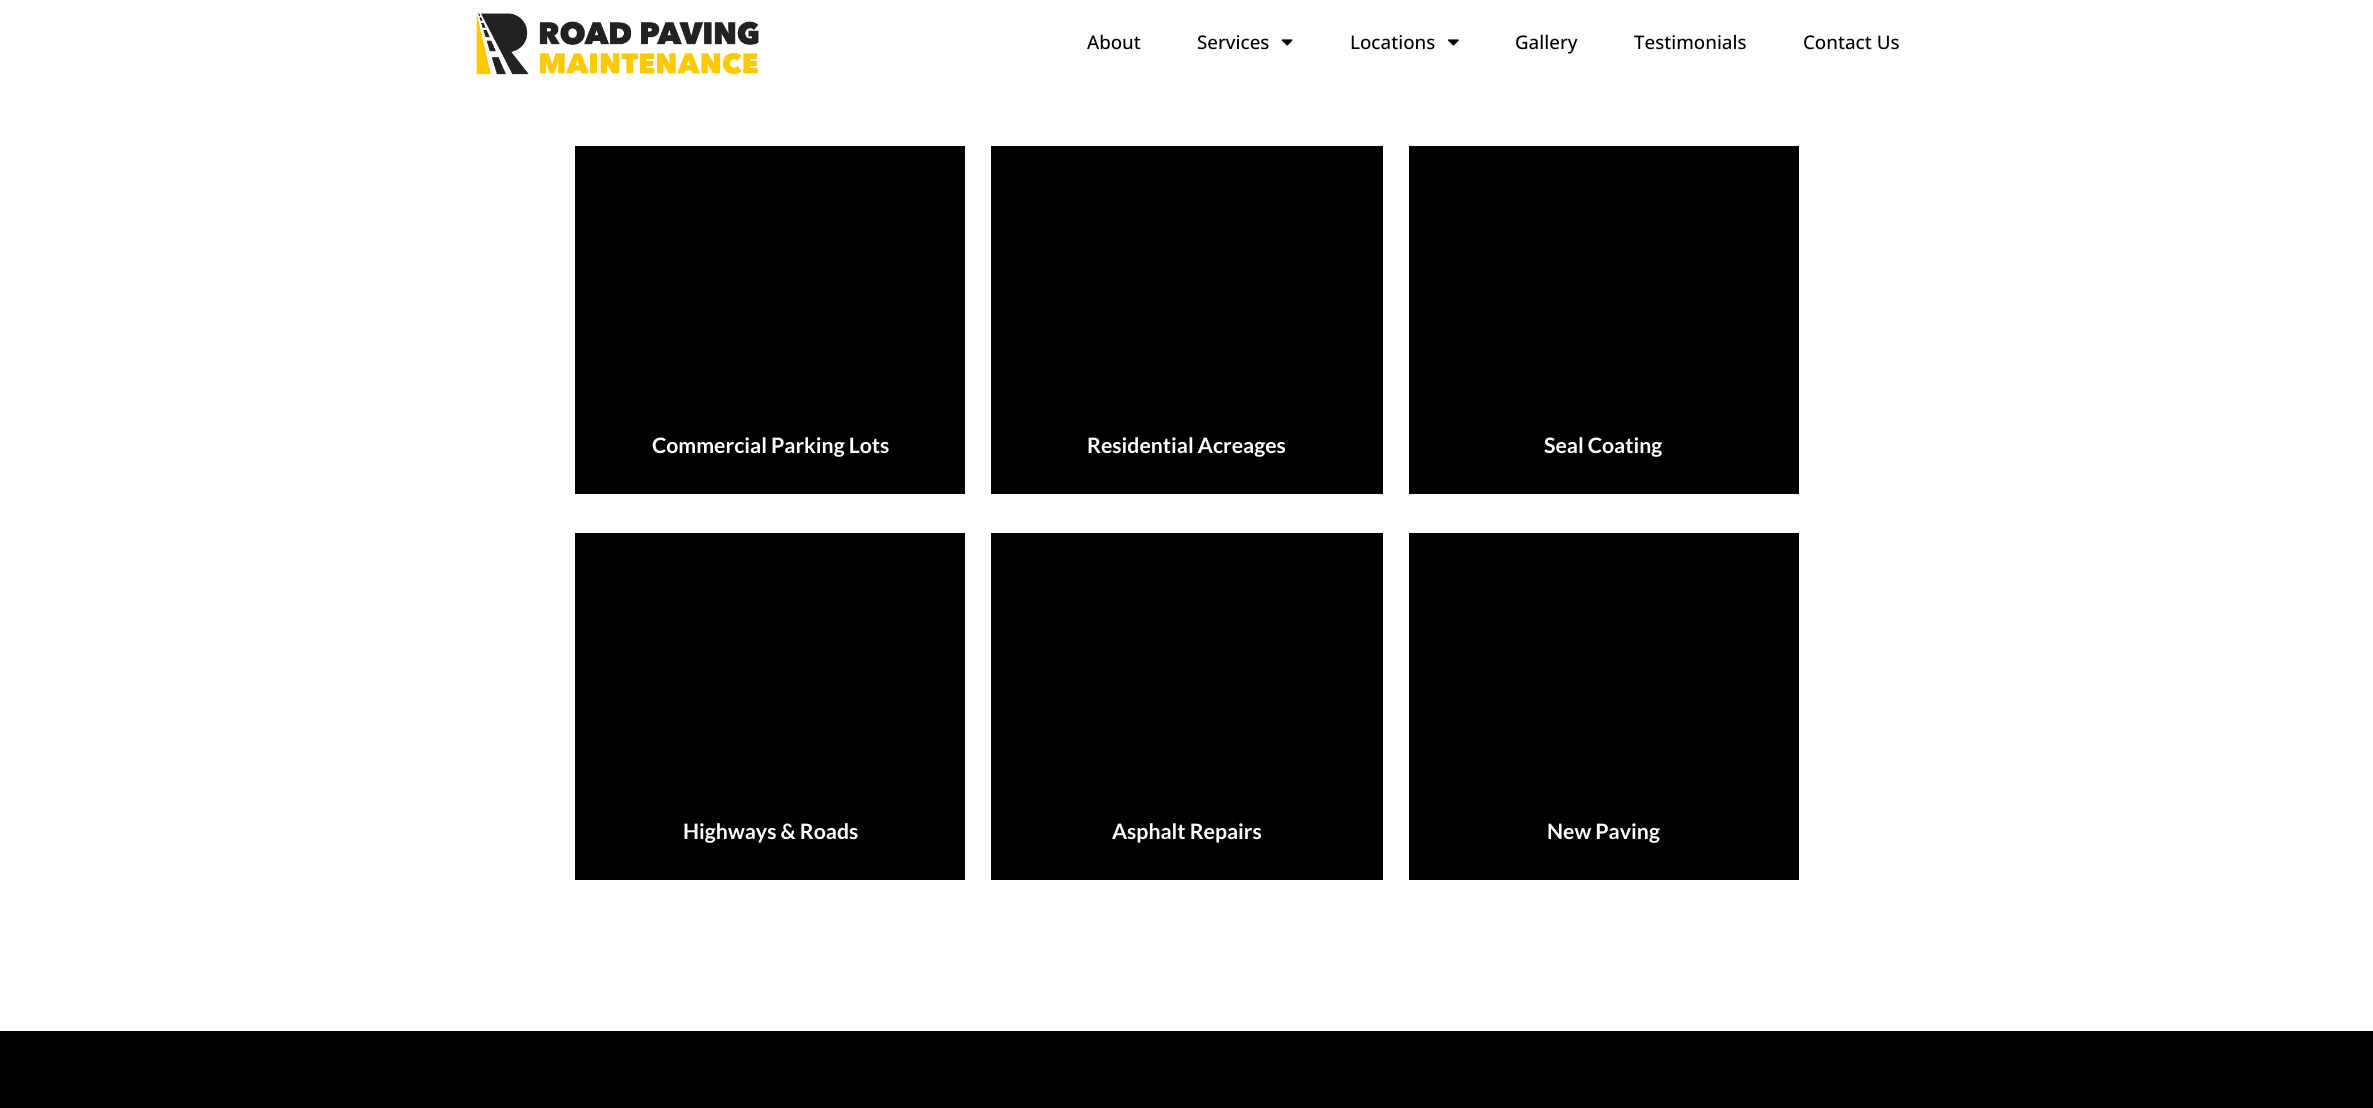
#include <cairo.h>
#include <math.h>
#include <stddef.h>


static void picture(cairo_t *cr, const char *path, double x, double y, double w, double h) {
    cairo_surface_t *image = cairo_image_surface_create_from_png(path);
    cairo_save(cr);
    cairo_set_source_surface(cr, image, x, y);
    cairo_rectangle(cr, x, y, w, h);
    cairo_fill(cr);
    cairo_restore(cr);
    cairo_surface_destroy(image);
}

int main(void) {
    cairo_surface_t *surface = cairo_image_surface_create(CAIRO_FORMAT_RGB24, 2373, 1108);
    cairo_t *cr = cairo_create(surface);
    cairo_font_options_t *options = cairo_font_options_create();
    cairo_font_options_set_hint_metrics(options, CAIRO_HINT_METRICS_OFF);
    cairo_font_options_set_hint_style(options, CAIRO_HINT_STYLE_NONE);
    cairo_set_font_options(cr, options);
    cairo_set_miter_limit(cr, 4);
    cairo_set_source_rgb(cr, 1, 1, 1);
    cairo_paint(cr);
    picture(cr, "img1.png", 476, 13, 283, 62);
    cairo_select_font_face(cr, "Open Sans Medium", CAIRO_FONT_SLANT_NORMAL, CAIRO_FONT_WEIGHT_NORMAL);
    cairo_set_font_size(cr, 18.75);
    cairo_set_source_rgb(cr, 0, 0, 0);
    cairo_move_to(cr, 1087, 49);
    cairo_show_text(cr, "About");
    cairo_move_to(cr, 1197, 49);
    cairo_show_text(cr, "Services");
    picture(cr, "img2.png", 1281, 39, 12, 7);
    cairo_move_to(cr, 1350, 49);
    cairo_show_text(cr, "Locations");
    picture(cr, "img3.png", 1447, 39, 12, 7);
    cairo_move_to(cr, 1515, 49);
    cairo_show_text(cr, "Gallery");
    cairo_move_to(cr, 1634, 49);
    cairo_show_text(cr, "Testimonials");
    cairo_move_to(cr, 1803, 49);
    cairo_show_text(cr, "Contact Us");
    cairo_rectangle(cr, 575, 146, 390, 348);
    cairo_fill(cr);
    cairo_select_font_face(cr, "Lato", CAIRO_FONT_SLANT_NORMAL, CAIRO_FONT_WEIGHT_BOLD);
    cairo_set_font_size(cr, 21.25);
    cairo_set_source_rgb(cr, 1, 1, 1);
    cairo_move_to(cr, 652, 453);
    cairo_show_text(cr, "Commercial Parking Lots");
    cairo_set_source_rgb(cr, 0, 0, 0);
    cairo_rectangle(cr, 991, 146, 392, 348);
    cairo_fill(cr);
    cairo_set_source_rgb(cr, 1, 1, 1);
    cairo_move_to(cr, 1087, 453);
    cairo_show_text(cr, "Residential Acreages");
    cairo_set_source_rgb(cr, 0, 0, 0);
    cairo_rectangle(cr, 1409, 146, 390, 348);
    cairo_fill(cr);
    cairo_set_source_rgb(cr, 1, 1, 1);
    cairo_move_to(cr, 1544, 453);
    cairo_show_text(cr, "Seal Coating");
    cairo_set_source_rgb(cr, 0, 0, 0);
    cairo_rectangle(cr, 575, 533, 390, 347);
    cairo_fill(cr);
    cairo_set_source_rgb(cr, 1, 1, 1);
    cairo_move_to(cr, 683, 839);
    cairo_show_text(cr, "Highways & Roads");
    cairo_set_source_rgb(cr, 0, 0, 0);
    cairo_rectangle(cr, 991, 533, 392, 347);
    cairo_fill(cr);
    cairo_set_source_rgb(cr, 1, 1, 1);
    cairo_move_to(cr, 1112, 839);
    cairo_show_text(cr, "Asphalt Repairs");
    cairo_set_source_rgb(cr, 0, 0, 0);
    cairo_rectangle(cr, 1409, 533, 390, 347);
    cairo_fill(cr);
    cairo_set_source_rgb(cr, 1, 1, 1);
    cairo_move_to(cr, 1547, 839);
    cairo_show_text(cr, "New Paving");
    cairo_set_source_rgb(cr, 0, 0, 0);
    cairo_rectangle(cr, 0, 1031, 2373, 77);
    cairo_fill(cr);
    cairo_surface_write_to_png(surface, "page.png");
    cairo_font_options_destroy(options);
    cairo_destroy(cr);
    cairo_surface_destroy(surface);
    return 0;
}
